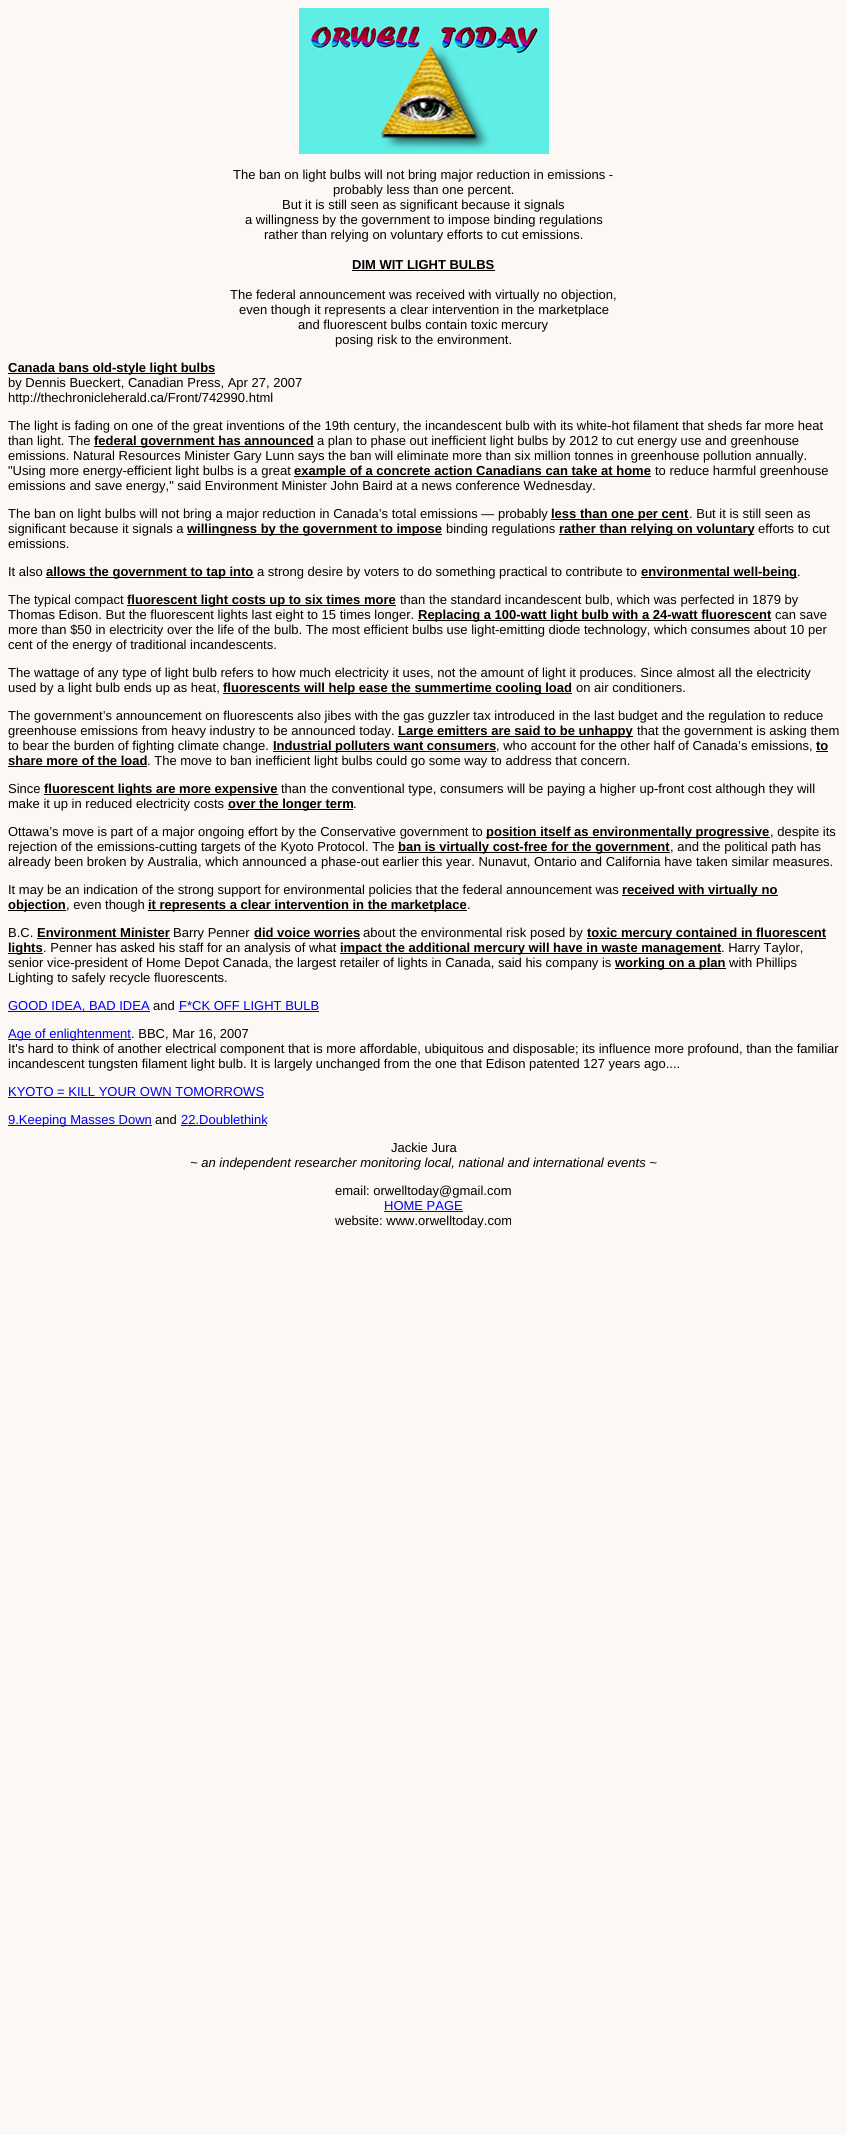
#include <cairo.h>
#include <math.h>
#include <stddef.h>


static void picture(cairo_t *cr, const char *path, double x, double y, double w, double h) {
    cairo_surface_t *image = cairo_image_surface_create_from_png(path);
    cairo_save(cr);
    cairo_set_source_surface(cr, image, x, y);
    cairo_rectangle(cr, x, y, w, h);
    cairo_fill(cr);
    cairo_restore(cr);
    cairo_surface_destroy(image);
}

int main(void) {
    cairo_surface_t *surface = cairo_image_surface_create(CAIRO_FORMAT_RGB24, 847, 2135);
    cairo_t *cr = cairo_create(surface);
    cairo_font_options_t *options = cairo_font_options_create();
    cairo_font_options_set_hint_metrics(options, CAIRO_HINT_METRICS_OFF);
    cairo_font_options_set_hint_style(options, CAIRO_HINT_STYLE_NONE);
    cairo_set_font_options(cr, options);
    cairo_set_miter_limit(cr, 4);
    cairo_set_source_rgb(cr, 0.984, 0.969, 0.961);
    cairo_paint(cr);
    picture(cr, "img1.png", 299, 8, 250, 146);
    cairo_select_font_face(cr, "Liberation Sans", CAIRO_FONT_SLANT_NORMAL, CAIRO_FONT_WEIGHT_NORMAL);
    cairo_set_font_size(cr, 13);
    cairo_set_source_rgb(cr, 0, 0, 0);
    cairo_move_to(cr, 233, 179);
    cairo_show_text(cr, "The ban on light bulbs will not bring major reduction in emissions -");
    cairo_move_to(cr, 333, 194);
    cairo_show_text(cr, "probably less than one percent.");
    cairo_move_to(cr, 282, 209);
    cairo_show_text(cr, "But it is still seen as significant because it signals");
    cairo_move_to(cr, 245, 224);
    cairo_show_text(cr, "a willingness by the government to impose binding regulations");
    cairo_move_to(cr, 264, 239);
    cairo_show_text(cr, "rather than relying on voluntary efforts to cut emissions.");
    cairo_select_font_face(cr, "Liberation Sans", CAIRO_FONT_SLANT_NORMAL, CAIRO_FONT_WEIGHT_BOLD);
    cairo_move_to(cr, 352, 269);
    cairo_show_text(cr, "DIM WIT LIGHT BULBS");
    cairo_rectangle(cr, 352, 270, 143, 1);
    cairo_fill(cr);
    cairo_select_font_face(cr, "Liberation Sans", CAIRO_FONT_SLANT_NORMAL, CAIRO_FONT_WEIGHT_NORMAL);
    cairo_move_to(cr, 230, 299);
    cairo_show_text(cr, "The federal announcement was received with virtually no objection,");
    cairo_move_to(cr, 239, 314);
    cairo_show_text(cr, "even though it represents a clear intervention in the marketplace");
    cairo_move_to(cr, 298, 329);
    cairo_show_text(cr, "and fluorescent bulbs contain toxic mercury");
    cairo_move_to(cr, 335, 344);
    cairo_show_text(cr, "posing risk to the environment.");
    cairo_rectangle(cr, 8, 373, 207, 1);
    cairo_fill(cr);
    cairo_select_font_face(cr, "Liberation Sans", CAIRO_FONT_SLANT_NORMAL, CAIRO_FONT_WEIGHT_BOLD);
    cairo_move_to(cr, 8, 372);
    cairo_show_text(cr, "Canada bans old-style light bulbs");
    cairo_select_font_face(cr, "Liberation Sans", CAIRO_FONT_SLANT_NORMAL, CAIRO_FONT_WEIGHT_NORMAL);
    cairo_move_to(cr, 8, 387);
    cairo_show_text(cr, "by Dennis Bueckert, Canadian Press, Apr 27, 2007");
    cairo_move_to(cr, 8, 402);
    cairo_show_text(cr, "http://thechronicleherald.ca/Front/742990.html");
    cairo_move_to(cr, 8, 430);
    cairo_show_text(cr, "The light is fading on one of the great inventions of the 19th century, the incandescent bulb with its white-hot filament that sheds far more heat");
    cairo_move_to(cr, 8, 445);
    cairo_show_text(cr, "than light. The");
    cairo_rectangle(cr, 94, 446, 220, 1);
    cairo_fill(cr);
    cairo_select_font_face(cr, "Liberation Sans", CAIRO_FONT_SLANT_NORMAL, CAIRO_FONT_WEIGHT_BOLD);
    cairo_move_to(cr, 94, 445);
    cairo_show_text(cr, "federal government has announced");
    cairo_select_font_face(cr, "Liberation Sans", CAIRO_FONT_SLANT_NORMAL, CAIRO_FONT_WEIGHT_NORMAL);
    cairo_move_to(cr, 317, 445);
    cairo_show_text(cr, "a plan to phase out inefficient light bulbs by 2012 to cut energy use and greenhouse");
    cairo_move_to(cr, 8, 460);
    cairo_show_text(cr, "emissions. Natural Resources Minister Gary Lunn says the ban will eliminate more than six million tonnes in greenhouse pollution annually.");
    cairo_move_to(cr, 8, 475);
    cairo_show_text(cr, "\"Using more energy-efficient light bulbs is a great");
    cairo_rectangle(cr, 294, 476, 357, 1);
    cairo_fill(cr);
    cairo_select_font_face(cr, "Liberation Sans", CAIRO_FONT_SLANT_NORMAL, CAIRO_FONT_WEIGHT_BOLD);
    cairo_move_to(cr, 294, 475);
    cairo_show_text(cr, "example of a concrete action Canadians can take at home");
    cairo_select_font_face(cr, "Liberation Sans", CAIRO_FONT_SLANT_NORMAL, CAIRO_FONT_WEIGHT_NORMAL);
    cairo_move_to(cr, 655, 475);
    cairo_show_text(cr, "to reduce harmful greenhouse");
    cairo_move_to(cr, 8, 490);
    cairo_show_text(cr, "emissions and save energy,\" said Environment Minister John Baird at a news conference Wednesday.");
    cairo_move_to(cr, 8, 518);
    cairo_show_text(cr, "The ban on light bulbs will not bring a major reduction in Canada’s total emissions — probably");
    cairo_rectangle(cr, 551, 519, 138, 1);
    cairo_fill(cr);
    cairo_select_font_face(cr, "Liberation Sans", CAIRO_FONT_SLANT_NORMAL, CAIRO_FONT_WEIGHT_BOLD);
    cairo_move_to(cr, 551, 518);
    cairo_show_text(cr, "less than one per cent");
    cairo_select_font_face(cr, "Liberation Sans", CAIRO_FONT_SLANT_NORMAL, CAIRO_FONT_WEIGHT_NORMAL);
    cairo_move_to(cr, 689, 518);
    cairo_show_text(cr, ". But it is still seen as");
    cairo_move_to(cr, 8, 533);
    cairo_show_text(cr, "significant because it signals a");
    cairo_rectangle(cr, 187, 534, 255, 1);
    cairo_fill(cr);
    cairo_select_font_face(cr, "Liberation Sans", CAIRO_FONT_SLANT_NORMAL, CAIRO_FONT_WEIGHT_BOLD);
    cairo_move_to(cr, 187, 533);
    cairo_show_text(cr, "willingness by the government to impose");
    cairo_select_font_face(cr, "Liberation Sans", CAIRO_FONT_SLANT_NORMAL, CAIRO_FONT_WEIGHT_NORMAL);
    cairo_move_to(cr, 446, 533);
    cairo_show_text(cr, "binding regulations");
    cairo_rectangle(cr, 559, 534, 195, 1);
    cairo_fill(cr);
    cairo_select_font_face(cr, "Liberation Sans", CAIRO_FONT_SLANT_NORMAL, CAIRO_FONT_WEIGHT_BOLD);
    cairo_move_to(cr, 559, 533);
    cairo_show_text(cr, "rather than relying on voluntary");
    cairo_select_font_face(cr, "Liberation Sans", CAIRO_FONT_SLANT_NORMAL, CAIRO_FONT_WEIGHT_NORMAL);
    cairo_move_to(cr, 758, 533);
    cairo_show_text(cr, "efforts to cut");
    cairo_move_to(cr, 8, 548);
    cairo_show_text(cr, "emissions.");
    cairo_move_to(cr, 8, 576);
    cairo_show_text(cr, "It also");
    cairo_rectangle(cr, 46, 577, 208, 1);
    cairo_fill(cr);
    cairo_select_font_face(cr, "Liberation Sans", CAIRO_FONT_SLANT_NORMAL, CAIRO_FONT_WEIGHT_BOLD);
    cairo_move_to(cr, 46, 576);
    cairo_show_text(cr, "allows the government to tap into");
    cairo_select_font_face(cr, "Liberation Sans", CAIRO_FONT_SLANT_NORMAL, CAIRO_FONT_WEIGHT_NORMAL);
    cairo_move_to(cr, 257, 576);
    cairo_show_text(cr, "a strong desire by voters to do something practical to contribute to");
    cairo_rectangle(cr, 641, 577, 156, 1);
    cairo_fill(cr);
    cairo_select_font_face(cr, "Liberation Sans", CAIRO_FONT_SLANT_NORMAL, CAIRO_FONT_WEIGHT_BOLD);
    cairo_move_to(cr, 641, 576);
    cairo_show_text(cr, "environmental well-being");
    cairo_select_font_face(cr, "Liberation Sans", CAIRO_FONT_SLANT_NORMAL, CAIRO_FONT_WEIGHT_NORMAL);
    cairo_move_to(cr, 797, 576);
    cairo_show_text(cr, ".");
    cairo_move_to(cr, 8, 604);
    cairo_show_text(cr, "The typical compact");
    cairo_rectangle(cr, 127, 605, 269, 1);
    cairo_fill(cr);
    cairo_select_font_face(cr, "Liberation Sans", CAIRO_FONT_SLANT_NORMAL, CAIRO_FONT_WEIGHT_BOLD);
    cairo_move_to(cr, 127, 604);
    cairo_show_text(cr, "fluorescent light costs up to six times more");
    cairo_select_font_face(cr, "Liberation Sans", CAIRO_FONT_SLANT_NORMAL, CAIRO_FONT_WEIGHT_NORMAL);
    cairo_move_to(cr, 400, 604);
    cairo_show_text(cr, "than the standard incandescent bulb, which was perfected in 1879 by");
    cairo_move_to(cr, 8, 619);
    cairo_show_text(cr, "Thomas Edison. But the fluorescent lights last eight to 15 times longer.");
    cairo_rectangle(cr, 418, 620, 353, 1);
    cairo_fill(cr);
    cairo_select_font_face(cr, "Liberation Sans", CAIRO_FONT_SLANT_NORMAL, CAIRO_FONT_WEIGHT_BOLD);
    cairo_move_to(cr, 418, 619);
    cairo_show_text(cr, "Replacing a 100-watt light bulb with a 24-watt fluorescent");
    cairo_select_font_face(cr, "Liberation Sans", CAIRO_FONT_SLANT_NORMAL, CAIRO_FONT_WEIGHT_NORMAL);
    cairo_move_to(cr, 775, 619);
    cairo_show_text(cr, "can save");
    cairo_move_to(cr, 8, 634);
    cairo_show_text(cr, "more than $50 in electricity over the life of the bulb. The most efficient bulbs use light-emitting diode technology, which consumes about 10 per");
    cairo_move_to(cr, 8, 649);
    cairo_show_text(cr, "cent of the energy of traditional incandescents.");
    cairo_move_to(cr, 8, 677);
    cairo_show_text(cr, "The wattage of any type of light bulb refers to how much electricity it uses, not the amount of light it produces. Since almost all the electricity");
    cairo_move_to(cr, 8, 692);
    cairo_show_text(cr, "used by a light bulb ends up as heat,");
    cairo_rectangle(cr, 223, 693, 349, 1);
    cairo_fill(cr);
    cairo_select_font_face(cr, "Liberation Sans", CAIRO_FONT_SLANT_NORMAL, CAIRO_FONT_WEIGHT_BOLD);
    cairo_move_to(cr, 223, 692);
    cairo_show_text(cr, "fluorescents will help ease the summertime cooling load");
    cairo_select_font_face(cr, "Liberation Sans", CAIRO_FONT_SLANT_NORMAL, CAIRO_FONT_WEIGHT_NORMAL);
    cairo_move_to(cr, 576, 692);
    cairo_show_text(cr, "on air conditioners.");
    cairo_move_to(cr, 8, 720);
    cairo_show_text(cr, "The government’s announcement on fluorescents also jibes with the gas guzzler tax introduced in the last budget and the regulation to reduce");
    cairo_move_to(cr, 8, 735);
    cairo_show_text(cr, "greenhouse emissions from heavy industry to be announced today.");
    cairo_rectangle(cr, 398, 736, 235, 1);
    cairo_fill(cr);
    cairo_select_font_face(cr, "Liberation Sans", CAIRO_FONT_SLANT_NORMAL, CAIRO_FONT_WEIGHT_BOLD);
    cairo_move_to(cr, 398, 735);
    cairo_show_text(cr, "Large emitters are said to be unhappy");
    cairo_select_font_face(cr, "Liberation Sans", CAIRO_FONT_SLANT_NORMAL, CAIRO_FONT_WEIGHT_NORMAL);
    cairo_move_to(cr, 637, 735);
    cairo_show_text(cr, "that the government is asking them");
    cairo_move_to(cr, 8, 750);
    cairo_show_text(cr, "to bear the burden of fighting climate change.");
    cairo_rectangle(cr, 273, 751, 223, 1);
    cairo_fill(cr);
    cairo_select_font_face(cr, "Liberation Sans", CAIRO_FONT_SLANT_NORMAL, CAIRO_FONT_WEIGHT_BOLD);
    cairo_move_to(cr, 273, 750);
    cairo_show_text(cr, "Industrial polluters want consumers");
    cairo_select_font_face(cr, "Liberation Sans", CAIRO_FONT_SLANT_NORMAL, CAIRO_FONT_WEIGHT_NORMAL);
    cairo_move_to(cr, 496, 750);
    cairo_show_text(cr, ", who account for the other half of Canada’s emissions,");
    cairo_select_font_face(cr, "Liberation Sans", CAIRO_FONT_SLANT_NORMAL, CAIRO_FONT_WEIGHT_BOLD);
    cairo_move_to(cr, 816, 750);
    cairo_show_text(cr, "to");
    cairo_rectangle(cr, 816, 751, 12, 1);
    cairo_fill(cr);
    cairo_move_to(cr, 8, 765);
    cairo_show_text(cr, "share more of the load");
    cairo_rectangle(cr, 8, 766, 139, 1);
    cairo_fill(cr);
    cairo_select_font_face(cr, "Liberation Sans", CAIRO_FONT_SLANT_NORMAL, CAIRO_FONT_WEIGHT_NORMAL);
    cairo_move_to(cr, 147, 765);
    cairo_show_text(cr, ". The move to ban inefficient light bulbs could go some way to address that concern.");
    cairo_move_to(cr, 8, 793);
    cairo_show_text(cr, "Since");
    cairo_rectangle(cr, 44, 794, 234, 1);
    cairo_fill(cr);
    cairo_select_font_face(cr, "Liberation Sans", CAIRO_FONT_SLANT_NORMAL, CAIRO_FONT_WEIGHT_BOLD);
    cairo_move_to(cr, 44, 793);
    cairo_show_text(cr, "fluorescent lights are more expensive");
    cairo_select_font_face(cr, "Liberation Sans", CAIRO_FONT_SLANT_NORMAL, CAIRO_FONT_WEIGHT_NORMAL);
    cairo_move_to(cr, 281, 793);
    cairo_show_text(cr, "than the conventional type, consumers will be paying a higher up-front cost although they will");
    cairo_move_to(cr, 8, 808);
    cairo_show_text(cr, "make it up in reduced electricity costs");
    cairo_rectangle(cr, 228, 809, 125, 1);
    cairo_fill(cr);
    cairo_select_font_face(cr, "Liberation Sans", CAIRO_FONT_SLANT_NORMAL, CAIRO_FONT_WEIGHT_BOLD);
    cairo_move_to(cr, 228, 808);
    cairo_show_text(cr, "over the longer term");
    cairo_select_font_face(cr, "Liberation Sans", CAIRO_FONT_SLANT_NORMAL, CAIRO_FONT_WEIGHT_NORMAL);
    cairo_move_to(cr, 353, 808);
    cairo_show_text(cr, ".");
    cairo_move_to(cr, 8, 836);
    cairo_show_text(cr, "Ottawa’s move is part of a major ongoing effort by the Conservative government to");
    cairo_rectangle(cr, 486, 837, 284, 1);
    cairo_fill(cr);
    cairo_select_font_face(cr, "Liberation Sans", CAIRO_FONT_SLANT_NORMAL, CAIRO_FONT_WEIGHT_BOLD);
    cairo_move_to(cr, 486, 836);
    cairo_show_text(cr, "position itself as environmentally progressive");
    cairo_select_font_face(cr, "Liberation Sans", CAIRO_FONT_SLANT_NORMAL, CAIRO_FONT_WEIGHT_NORMAL);
    cairo_move_to(cr, 770, 836);
    cairo_show_text(cr, ", despite its");
    cairo_move_to(cr, 8, 851);
    cairo_show_text(cr, "rejection of the emissions-cutting targets of the Kyoto Protocol. The");
    cairo_rectangle(cr, 398, 852, 272, 1);
    cairo_fill(cr);
    cairo_select_font_face(cr, "Liberation Sans", CAIRO_FONT_SLANT_NORMAL, CAIRO_FONT_WEIGHT_BOLD);
    cairo_move_to(cr, 398, 851);
    cairo_show_text(cr, "ban is virtually cost-free for the government");
    cairo_select_font_face(cr, "Liberation Sans", CAIRO_FONT_SLANT_NORMAL, CAIRO_FONT_WEIGHT_NORMAL);
    cairo_move_to(cr, 670, 851);
    cairo_show_text(cr, ", and the political path has");
    cairo_move_to(cr, 8, 866);
    cairo_show_text(cr, "already been broken by Australia, which announced a phase-out earlier this year. Nunavut, Ontario and California have taken similar measures.");
    cairo_move_to(cr, 8, 894);
    cairo_show_text(cr, "It may be an indication of the strong support for environmental policies that the federal announcement was");
    cairo_rectangle(cr, 622, 895, 156, 1);
    cairo_fill(cr);
    cairo_select_font_face(cr, "Liberation Sans", CAIRO_FONT_SLANT_NORMAL, CAIRO_FONT_WEIGHT_BOLD);
    cairo_move_to(cr, 622, 894);
    cairo_show_text(cr, "received with virtually no");
    cairo_rectangle(cr, 8, 910, 58, 1);
    cairo_fill(cr);
    cairo_move_to(cr, 8, 909);
    cairo_show_text(cr, "objection");
    cairo_select_font_face(cr, "Liberation Sans", CAIRO_FONT_SLANT_NORMAL, CAIRO_FONT_WEIGHT_NORMAL);
    cairo_move_to(cr, 66, 909);
    cairo_show_text(cr, ", even though");
    cairo_rectangle(cr, 148, 910, 319, 1);
    cairo_fill(cr);
    cairo_select_font_face(cr, "Liberation Sans", CAIRO_FONT_SLANT_NORMAL, CAIRO_FONT_WEIGHT_BOLD);
    cairo_move_to(cr, 148, 909);
    cairo_show_text(cr, "it represents a clear intervention in the marketplace");
    cairo_select_font_face(cr, "Liberation Sans", CAIRO_FONT_SLANT_NORMAL, CAIRO_FONT_WEIGHT_NORMAL);
    cairo_move_to(cr, 467, 909);
    cairo_show_text(cr, ".");
    cairo_move_to(cr, 8, 937);
    cairo_show_text(cr, "B.C.");
    cairo_select_font_face(cr, "Liberation Sans", CAIRO_FONT_SLANT_NORMAL, CAIRO_FONT_WEIGHT_BOLD);
    cairo_move_to(cr, 37, 937);
    cairo_show_text(cr, "Environment Minister");
    cairo_rectangle(cr, 37, 938, 133, 1);
    cairo_fill(cr);
    cairo_select_font_face(cr, "Liberation Sans", CAIRO_FONT_SLANT_NORMAL, CAIRO_FONT_WEIGHT_NORMAL);
    cairo_move_to(cr, 173, 937);
    cairo_show_text(cr, "Barry Penner");
    cairo_select_font_face(cr, "Liberation Sans", CAIRO_FONT_SLANT_NORMAL, CAIRO_FONT_WEIGHT_BOLD);
    cairo_move_to(cr, 254, 937);
    cairo_show_text(cr, "did voice worries");
    cairo_rectangle(cr, 254, 938, 106, 1);
    cairo_fill(cr);
    cairo_select_font_face(cr, "Liberation Sans", CAIRO_FONT_SLANT_NORMAL, CAIRO_FONT_WEIGHT_NORMAL);
    cairo_move_to(cr, 363, 937);
    cairo_show_text(cr, "about the environmental risk posed by");
    cairo_rectangle(cr, 587, 938, 239, 1);
    cairo_fill(cr);
    cairo_select_font_face(cr, "Liberation Sans", CAIRO_FONT_SLANT_NORMAL, CAIRO_FONT_WEIGHT_BOLD);
    cairo_move_to(cr, 587, 937);
    cairo_show_text(cr, "toxic mercury contained in fluorescent");
    cairo_rectangle(cr, 8, 953, 35, 1);
    cairo_fill(cr);
    cairo_move_to(cr, 8, 952);
    cairo_show_text(cr, "lights");
    cairo_select_font_face(cr, "Liberation Sans", CAIRO_FONT_SLANT_NORMAL, CAIRO_FONT_WEIGHT_NORMAL);
    cairo_move_to(cr, 43, 952);
    cairo_show_text(cr, ". Penner has asked his staff for an analysis of what");
    cairo_rectangle(cr, 340, 953, 381, 1);
    cairo_fill(cr);
    cairo_select_font_face(cr, "Liberation Sans", CAIRO_FONT_SLANT_NORMAL, CAIRO_FONT_WEIGHT_BOLD);
    cairo_move_to(cr, 340, 952);
    cairo_show_text(cr, "impact the additional mercury will have in waste management");
    cairo_select_font_face(cr, "Liberation Sans", CAIRO_FONT_SLANT_NORMAL, CAIRO_FONT_WEIGHT_NORMAL);
    cairo_move_to(cr, 721, 952);
    cairo_show_text(cr, ". Harry Taylor,");
    cairo_move_to(cr, 8, 967);
    cairo_show_text(cr, "senior vice-president of Home Depot Canada, the largest retailer of lights in Canada, said his company is");
    cairo_rectangle(cr, 615, 968, 111, 1);
    cairo_fill(cr);
    cairo_select_font_face(cr, "Liberation Sans", CAIRO_FONT_SLANT_NORMAL, CAIRO_FONT_WEIGHT_BOLD);
    cairo_move_to(cr, 615, 967);
    cairo_show_text(cr, "working on a plan");
    cairo_select_font_face(cr, "Liberation Sans", CAIRO_FONT_SLANT_NORMAL, CAIRO_FONT_WEIGHT_NORMAL);
    cairo_move_to(cr, 729, 967);
    cairo_show_text(cr, "with Phillips");
    cairo_move_to(cr, 8, 982);
    cairo_show_text(cr, "Lighting to safely recycle fluorescents.");
    cairo_set_source_rgb(cr, 0, 0, 0.933);
    cairo_rectangle(cr, 8, 1011, 142, 1);
    cairo_fill(cr);
    cairo_move_to(cr, 8, 1010);
    cairo_show_text(cr, "GOOD IDEA, BAD IDEA");
    cairo_set_source_rgb(cr, 0, 0, 0);
    cairo_move_to(cr, 153, 1010);
    cairo_show_text(cr, "and");
    cairo_set_source_rgb(cr, 0, 0, 0.933);
    cairo_move_to(cr, 179, 1010);
    cairo_show_text(cr, "F*CK OFF LIGHT BULB");
    cairo_rectangle(cr, 179, 1011, 140, 1);
    cairo_fill(cr);
    cairo_rectangle(cr, 8, 1039, 123, 1);
    cairo_fill(cr);
    cairo_move_to(cr, 8, 1038);
    cairo_show_text(cr, "Age of enlightenment");
    cairo_set_source_rgb(cr, 0, 0, 0);
    cairo_move_to(cr, 131, 1038);
    cairo_show_text(cr, ". BBC, Mar 16, 2007");
    cairo_move_to(cr, 8, 1053);
    cairo_show_text(cr, "It's hard to think of another electrical component that is more affordable, ubiquitous and disposable; its influence more profound, than the familiar");
    cairo_move_to(cr, 8, 1068);
    cairo_show_text(cr, "incandescent tungsten filament light bulb. It is largely unchanged from the one that Edison patented 127 years ago....");
    cairo_set_source_rgb(cr, 0, 0, 0.933);
    cairo_move_to(cr, 8, 1096);
    cairo_show_text(cr, "KYOTO = KILL YOUR OWN TOMORROWS");
    cairo_rectangle(cr, 8, 1097, 256, 1);
    cairo_fill(cr);
    cairo_rectangle(cr, 8, 1125, 144, 1);
    cairo_fill(cr);
    cairo_move_to(cr, 8, 1124);
    cairo_show_text(cr, "9.Keeping Masses Down");
    cairo_set_source_rgb(cr, 0, 0, 0);
    cairo_move_to(cr, 155, 1124);
    cairo_show_text(cr, "and");
    cairo_set_source_rgb(cr, 0, 0, 0.933);
    cairo_move_to(cr, 181, 1124);
    cairo_show_text(cr, "22.Doublethink");
    cairo_rectangle(cr, 181, 1125, 86, 1);
    cairo_fill(cr);
    cairo_set_source_rgb(cr, 0, 0, 0);
    cairo_move_to(cr, 391, 1152);
    cairo_show_text(cr, "Jackie Jura");
    cairo_select_font_face(cr, "Liberation Sans", CAIRO_FONT_SLANT_ITALIC, CAIRO_FONT_WEIGHT_NORMAL);
    cairo_move_to(cr, 190, 1167);
    cairo_show_text(cr, "~ an independent researcher monitoring local, national and international events ~");
    cairo_select_font_face(cr, "Liberation Sans", CAIRO_FONT_SLANT_NORMAL, CAIRO_FONT_WEIGHT_NORMAL);
    cairo_move_to(cr, 335, 1195);
    cairo_show_text(cr, "email: orwelltoday@gmail.com");
    cairo_set_source_rgb(cr, 0, 0, 0.933);
    cairo_move_to(cr, 384, 1210);
    cairo_show_text(cr, "HOME PAGE");
    cairo_rectangle(cr, 384, 1211, 79, 1);
    cairo_fill(cr);
    cairo_set_source_rgb(cr, 0, 0, 0);
    cairo_move_to(cr, 335, 1225);
    cairo_show_text(cr, "website: www.orwelltoday.com");
    cairo_surface_write_to_png(surface, "page.png");
    cairo_font_options_destroy(options);
    cairo_destroy(cr);
    cairo_surface_destroy(surface);
    return 0;
}
